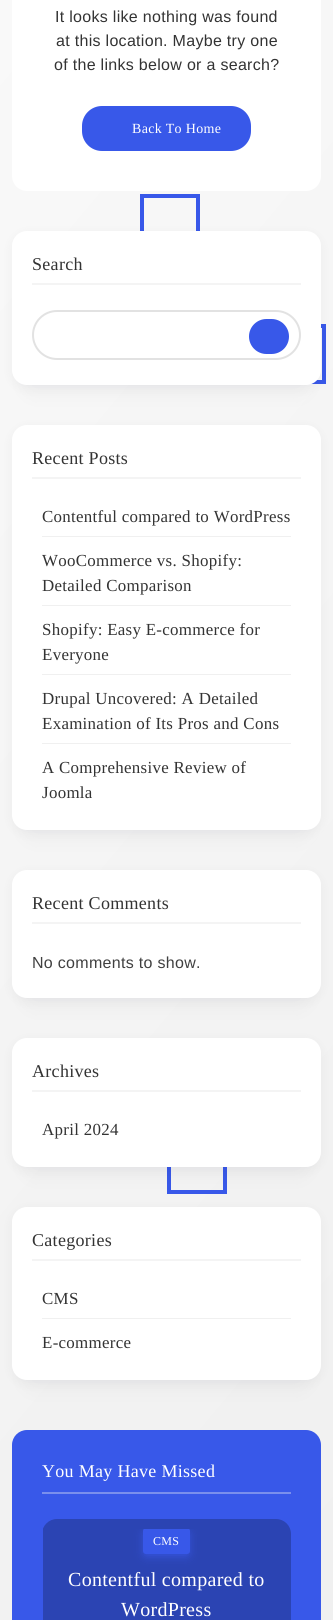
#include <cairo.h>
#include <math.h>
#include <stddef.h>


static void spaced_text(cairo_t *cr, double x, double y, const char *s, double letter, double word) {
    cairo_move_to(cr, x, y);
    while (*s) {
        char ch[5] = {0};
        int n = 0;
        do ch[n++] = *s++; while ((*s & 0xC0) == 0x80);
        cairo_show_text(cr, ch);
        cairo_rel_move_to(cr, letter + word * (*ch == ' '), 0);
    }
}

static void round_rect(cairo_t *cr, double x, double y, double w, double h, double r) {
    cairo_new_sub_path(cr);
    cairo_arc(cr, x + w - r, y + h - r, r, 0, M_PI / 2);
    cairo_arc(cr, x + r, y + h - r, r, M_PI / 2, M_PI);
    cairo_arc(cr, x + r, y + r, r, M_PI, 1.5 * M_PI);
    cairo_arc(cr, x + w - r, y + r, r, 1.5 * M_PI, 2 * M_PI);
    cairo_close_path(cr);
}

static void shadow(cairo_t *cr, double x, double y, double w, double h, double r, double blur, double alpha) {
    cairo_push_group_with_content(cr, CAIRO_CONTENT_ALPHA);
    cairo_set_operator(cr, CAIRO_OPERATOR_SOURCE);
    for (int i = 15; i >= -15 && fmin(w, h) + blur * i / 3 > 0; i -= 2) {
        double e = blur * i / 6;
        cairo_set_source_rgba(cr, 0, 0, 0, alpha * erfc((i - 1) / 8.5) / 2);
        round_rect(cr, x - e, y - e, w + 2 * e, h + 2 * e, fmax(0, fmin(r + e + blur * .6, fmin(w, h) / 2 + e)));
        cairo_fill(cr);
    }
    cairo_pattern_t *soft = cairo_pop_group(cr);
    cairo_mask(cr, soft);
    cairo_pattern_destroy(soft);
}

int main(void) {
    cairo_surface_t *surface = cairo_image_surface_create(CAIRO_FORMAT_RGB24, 333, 1620);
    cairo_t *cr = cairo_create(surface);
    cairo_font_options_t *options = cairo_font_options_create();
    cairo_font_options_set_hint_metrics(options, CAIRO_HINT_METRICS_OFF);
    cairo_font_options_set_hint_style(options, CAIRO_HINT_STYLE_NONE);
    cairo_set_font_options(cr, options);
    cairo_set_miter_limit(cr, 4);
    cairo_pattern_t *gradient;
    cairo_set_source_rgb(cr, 1, 1, 1);
    cairo_paint(cr);
    gradient = cairo_pattern_create_linear(-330, 393, 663, 1227);
    cairo_pattern_add_color_stop_rgba(gradient, 0, 0.976, 0.976, 0.976, 1);
    cairo_pattern_add_color_stop_rgba(gradient, 1, 0.941, 0.941, 0.941, 1);
    cairo_set_source(cr, gradient);
    cairo_pattern_destroy(gradient);
    cairo_rectangle(cr, 0, 0, 333, 1620);
    cairo_fill(cr);
    cairo_set_source_rgb(cr, 1, 1, 1);
    round_rect(cr, 12, -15, 309, 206, 15);
    cairo_fill(cr);
    cairo_select_font_face(cr, "Liberation Sans", CAIRO_FONT_SLANT_NORMAL, CAIRO_FONT_WEIGHT_NORMAL);
    cairo_set_font_size(cr, 16);
    cairo_set_source_rgb(cr, 0.2, 0.2, 0.2);
    spaced_text(cr, 55, 22, "It looks like nothing was found", 0.3, 0);
    spaced_text(cr, 56, 46, "at this location. Maybe try one", 0.3, 0);
    spaced_text(cr, 54, 70, "of the links below or a search?", 0.3, 0);
    cairo_set_source_rgb(cr, 0.22, 0.345, 0.914);
    round_rect(cr, 82, 106, 169, 45, 20);
    cairo_fill(cr);
    cairo_select_font_face(cr, "Liberation Serif", CAIRO_FONT_SLANT_NORMAL, CAIRO_FONT_WEIGHT_NORMAL);
    cairo_set_font_size(cr, 14);
    cairo_set_source_rgb(cr, 1, 1, 1);
    spaced_text(cr, 132, 133, "Back To Home", 0.3, 0);
    cairo_rectangle(cr, 142, 196, 56, 56);
    cairo_set_source_rgb(cr, 0.22, 0.345, 0.914);
    cairo_set_line_width(cr, 4);
    cairo_stroke(cr);
    cairo_rectangle(cr, 268, 326, 56, 56);
    cairo_stroke(cr);
    cairo_set_source_rgb(cr, 0.027, 0.039, 0.098);
    shadow(cr, 32, 273, 269, 114, 0, 13.5, 0.05);
    shadow(cr, 13, 235, 307, 152, 14, 6, 0.05);
    cairo_set_source_rgb(cr, 1, 1, 1);
    round_rect(cr, 12, 231, 309, 154, 15);
    cairo_fill(cr);
    cairo_set_source_rgb(cr, 0.957, 0.957, 0.957);
    cairo_rectangle(cr, 32, 283, 269, 2);
    cairo_fill(cr);
    cairo_set_font_size(cr, 18);
    cairo_set_source_rgb(cr, 0.2, 0.2, 0.2);
    spaced_text(cr, 32, 270, "Search", 0.3, 0);
    round_rect(cr, 33, 311, 267, 48, 24);
    cairo_set_source_rgb(cr, 0.886, 0.886, 0.886);
    cairo_set_line_width(cr, 2);
    cairo_stroke(cr);
    cairo_set_source_rgb(cr, 0.22, 0.345, 0.914);
    round_rect(cr, 249, 319, 40, 35, 17.5);
    cairo_fill(cr);
    cairo_set_source_rgb(cr, 0.027, 0.039, 0.098);
    shadow(cr, 32, 467, 269, 365, 0, 13.5, 0.05);
    shadow(cr, 13, 429, 307, 403, 14, 6, 0.05);
    cairo_set_source_rgb(cr, 1, 1, 1);
    round_rect(cr, 12, 425, 309, 405, 15);
    cairo_fill(cr);
    cairo_set_source_rgb(cr, 0.957, 0.957, 0.957);
    cairo_rectangle(cr, 32, 477, 269, 2);
    cairo_fill(cr);
    cairo_set_source_rgb(cr, 0.2, 0.2, 0.2);
    spaced_text(cr, 32, 464, "Recent Posts", 0.3, 0);
    cairo_set_source_rgb(cr, 0.941, 0.941, 0.941);
    cairo_rectangle(cr, 42, 536, 249, 1);
    cairo_fill(cr);
    cairo_set_font_size(cr, 16.9);
    cairo_set_source_rgb(cr, 0.2, 0.2, 0.2);
    spaced_text(cr, 42, 522, "Contentful compared to WordPress", 0.3, 0);
    cairo_set_source_rgb(cr, 0.941, 0.941, 0.941);
    cairo_rectangle(cr, 42, 605, 249, 1);
    cairo_fill(cr);
    cairo_set_source_rgb(cr, 0.2, 0.2, 0.2);
    spaced_text(cr, 42, 566, "WooCommerce vs. Shopify:", 0.3, 0);
    spaced_text(cr, 42, 591, "Detailed Comparison", 0.3, 0);
    cairo_set_source_rgb(cr, 0.941, 0.941, 0.941);
    cairo_rectangle(cr, 42, 674, 249, 1);
    cairo_fill(cr);
    cairo_set_source_rgb(cr, 0.2, 0.2, 0.2);
    spaced_text(cr, 42, 635, "Shopify: Easy E-commerce for", 0.3, 0);
    spaced_text(cr, 42, 660, "Everyone", 0.3, 0);
    cairo_set_source_rgb(cr, 0.941, 0.941, 0.941);
    cairo_rectangle(cr, 42, 743, 249, 1);
    cairo_fill(cr);
    cairo_set_source_rgb(cr, 0.2, 0.2, 0.2);
    spaced_text(cr, 42, 704, "Drupal Uncovered: A Detailed", 0.3, 0);
    spaced_text(cr, 42, 729, "Examination of Its Pros and Cons", 0.3, 0);
    spaced_text(cr, 42, 773, "A Comprehensive Review of", 0.3, 0);
    spaced_text(cr, 42, 798, "Joomla", 0.3, 0);
    cairo_set_source_rgb(cr, 0.027, 0.039, 0.098);
    shadow(cr, 32, 912, 269, 88, 0, 13.5, 0.05);
    shadow(cr, 13, 874, 307, 126, 14, 6, 0.05);
    cairo_set_source_rgb(cr, 1, 1, 1);
    round_rect(cr, 12, 870, 309, 128, 15);
    cairo_fill(cr);
    cairo_set_source_rgb(cr, 0.957, 0.957, 0.957);
    cairo_rectangle(cr, 32, 922, 269, 2);
    cairo_fill(cr);
    cairo_set_font_size(cr, 18);
    cairo_set_source_rgb(cr, 0.2, 0.2, 0.2);
    spaced_text(cr, 32, 909, "Recent Comments", 0.3, 0);
    cairo_select_font_face(cr, "Liberation Sans", CAIRO_FONT_SLANT_NORMAL, CAIRO_FONT_WEIGHT_NORMAL);
    cairo_set_font_size(cr, 16);
    cairo_set_source_rgb(cr, 0.251, 0.251, 0.251);
    spaced_text(cr, 32, 968, "No comments to show.", 0.3, 0);
    cairo_rectangle(cr, 169, 1136, 56, 56);
    cairo_set_source_rgb(cr, 0.22, 0.345, 0.914);
    cairo_set_line_width(cr, 4);
    cairo_stroke(cr);
    cairo_set_source_rgb(cr, 0.027, 0.039, 0.098);
    shadow(cr, 32, 1080, 269, 89, 0, 13.5, 0.05);
    shadow(cr, 13, 1042, 307, 127, 14, 6, 0.05);
    cairo_set_source_rgb(cr, 1, 1, 1);
    round_rect(cr, 12, 1038, 309, 129, 15);
    cairo_fill(cr);
    cairo_set_source_rgb(cr, 0.957, 0.957, 0.957);
    cairo_rectangle(cr, 32, 1090, 269, 2);
    cairo_fill(cr);
    cairo_select_font_face(cr, "Liberation Serif", CAIRO_FONT_SLANT_NORMAL, CAIRO_FONT_WEIGHT_NORMAL);
    cairo_set_font_size(cr, 18);
    cairo_set_source_rgb(cr, 0.2, 0.2, 0.2);
    spaced_text(cr, 32, 1077, "Archives", 0.3, 0);
    cairo_set_font_size(cr, 16.9);
    spaced_text(cr, 42, 1135, "April 2024", 0.3, 0);
    cairo_set_source_rgb(cr, 0.027, 0.039, 0.098);
    shadow(cr, 32, 1249, 269, 133, 0, 13.5, 0.05);
    shadow(cr, 13, 1211, 307, 171, 14, 6, 0.05);
    cairo_set_source_rgb(cr, 1, 1, 1);
    round_rect(cr, 12, 1207, 309, 173, 15);
    cairo_fill(cr);
    cairo_set_source_rgb(cr, 0.957, 0.957, 0.957);
    cairo_rectangle(cr, 32, 1259, 269, 2);
    cairo_fill(cr);
    cairo_set_font_size(cr, 18);
    cairo_set_source_rgb(cr, 0.2, 0.2, 0.2);
    spaced_text(cr, 32, 1246, "Categories", 0.3, 0);
    cairo_set_source_rgb(cr, 0.941, 0.941, 0.941);
    cairo_rectangle(cr, 42, 1318, 249, 1);
    cairo_fill(cr);
    cairo_set_font_size(cr, 16.9);
    cairo_set_source_rgb(cr, 0.2, 0.2, 0.2);
    spaced_text(cr, 42, 1304, "CMS", 0.3, 0);
    spaced_text(cr, 42, 1348, "E-commerce", 0.3, 0);
    cairo_set_source_rgb(cr, 0.22, 0.345, 0.914);
    round_rect(cr, 12, 1430, 309, 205, 15);
    cairo_fill(cr);
    cairo_set_source_rgb(cr, 0.478, 0.561, 0.929);
    cairo_rectangle(cr, 42, 1492, 249, 2);
    cairo_fill(cr);
    cairo_set_font_size(cr, 18);
    cairo_set_source_rgb(cr, 1, 1, 1);
    spaced_text(cr, 42, 1477, "You May Have Missed", 0.3, 0);
    cairo_save(cr);
    round_rect(cr, 42, 1519, 249, 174, 15);
    cairo_clip(cr);
    cairo_set_source_rgb(cr, 0.169, 0.267, 0.702);
    cairo_new_path(cr);
    cairo_move_to(cr, 43, 1519);
    cairo_line_to(cr, 276, 1519);
    cairo_curve_to(cr, 284.5, 1519, 291, 1525.5, 291, 1534);
    cairo_line_to(cr, 291, 1620);
    cairo_curve_to(cr, 291, 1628.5, 284.5, 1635, 276, 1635);
    cairo_line_to(cr, 43, 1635);
    cairo_close_path(cr);
    cairo_fill(cr);
    cairo_restore(cr);
    cairo_save(cr);
    cairo_rectangle(cr, 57, 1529, 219, 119);
    cairo_clip(cr);
    cairo_set_source_rgb(cr, 0.22, 0.345, 0.914);
    shadow(cr, 145, 1533, 43, 22, 1, 5, 1);
    cairo_restore(cr);
    cairo_save(cr);
    cairo_rectangle(cr, 57, 1529, 219, 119);
    cairo_clip(cr);
    cairo_set_source_rgb(cr, 0.22, 0.345, 0.914);
    round_rect(cr, 143, 1528, 47, 26, 3);
    cairo_fill(cr);
    cairo_restore(cr);
    cairo_set_font_size(cr, 12);
    spaced_text(cr, 153, 1545, "CMS", 0.3, 0);
    cairo_set_font_size(cr, 20);
    spaced_text(cr, 68, 1586, "Contentful compared to", 0.3, 0);
    spaced_text(cr, 121, 1616, "WordPress", 0.3, 0);
    cairo_surface_write_to_png(surface, "page.png");
    cairo_font_options_destroy(options);
    cairo_destroy(cr);
    cairo_surface_destroy(surface);
    return 0;
}
